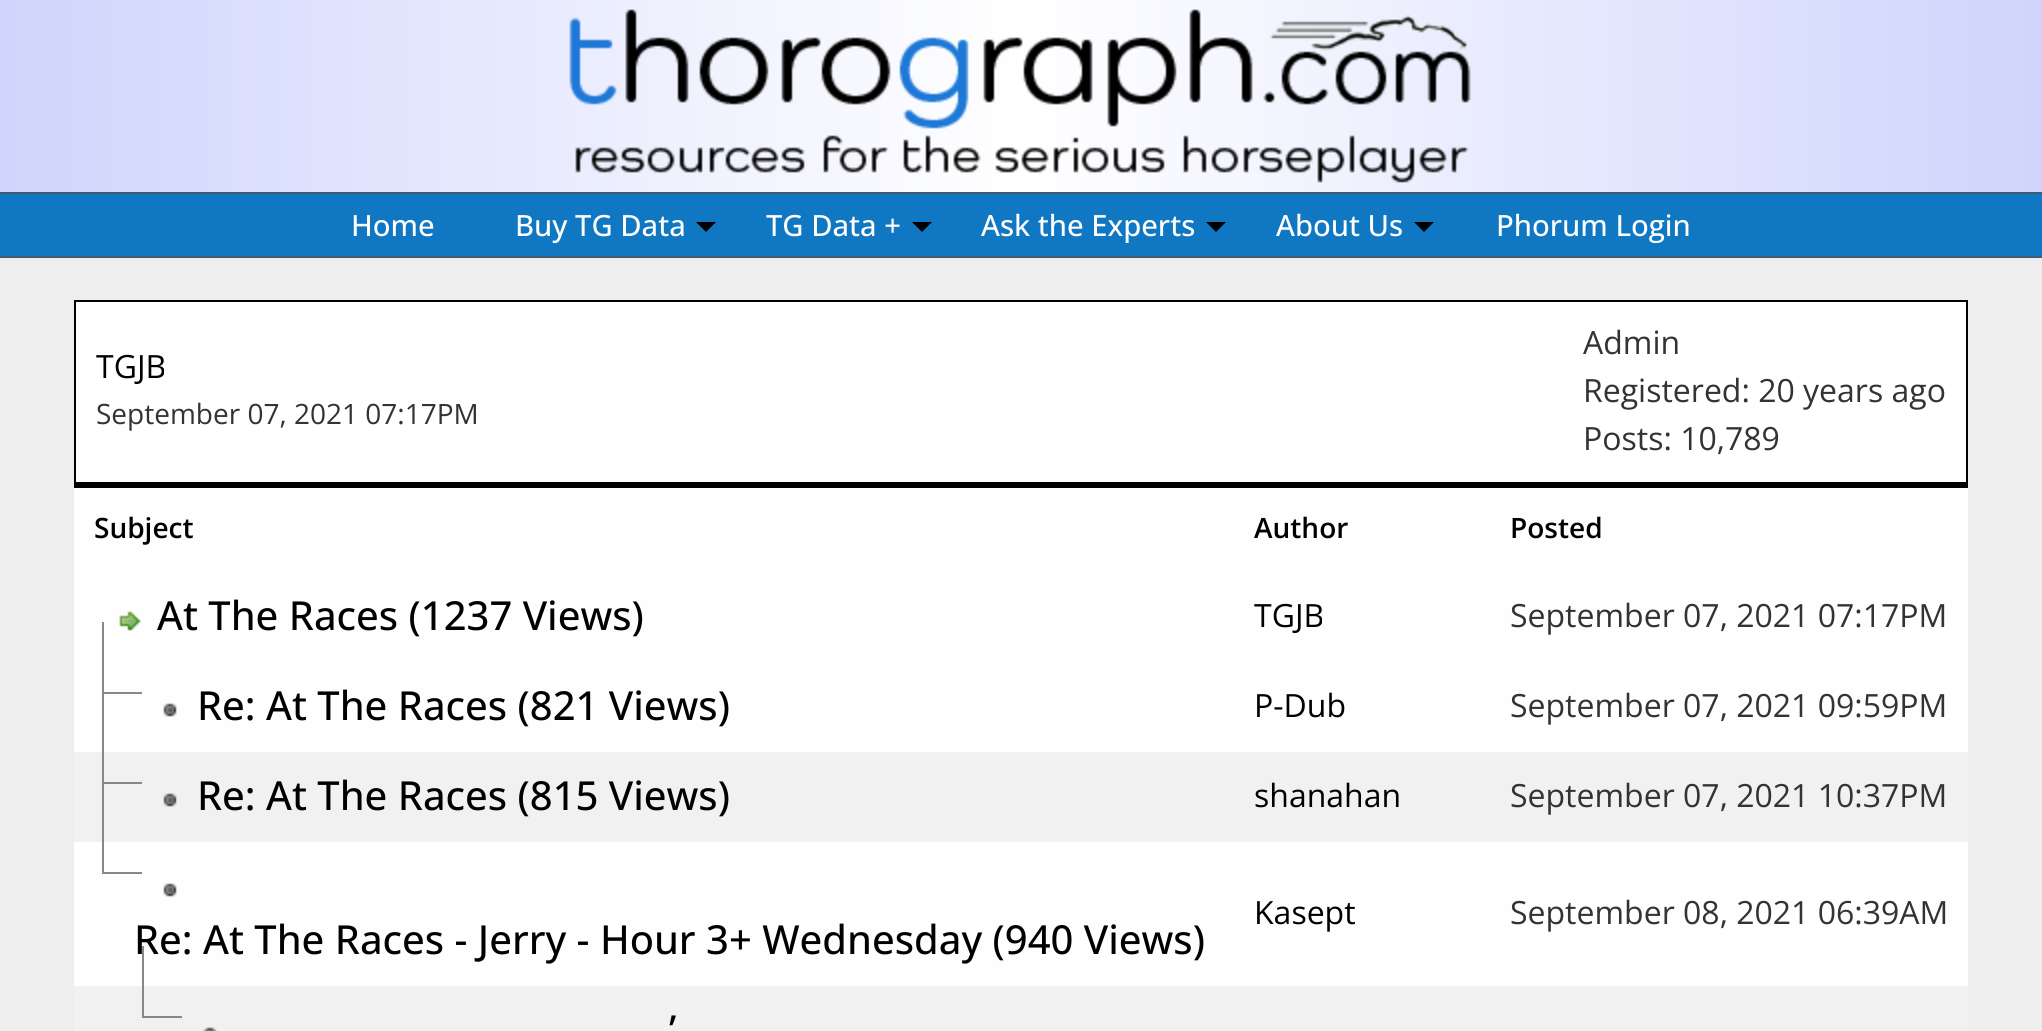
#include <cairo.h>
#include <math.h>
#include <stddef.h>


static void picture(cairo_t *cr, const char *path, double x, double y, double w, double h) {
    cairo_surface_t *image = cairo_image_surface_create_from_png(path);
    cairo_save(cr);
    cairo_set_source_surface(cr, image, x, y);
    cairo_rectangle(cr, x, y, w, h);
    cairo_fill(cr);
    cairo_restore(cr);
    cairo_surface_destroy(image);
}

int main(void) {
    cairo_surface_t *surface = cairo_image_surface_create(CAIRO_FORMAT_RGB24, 2042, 1031);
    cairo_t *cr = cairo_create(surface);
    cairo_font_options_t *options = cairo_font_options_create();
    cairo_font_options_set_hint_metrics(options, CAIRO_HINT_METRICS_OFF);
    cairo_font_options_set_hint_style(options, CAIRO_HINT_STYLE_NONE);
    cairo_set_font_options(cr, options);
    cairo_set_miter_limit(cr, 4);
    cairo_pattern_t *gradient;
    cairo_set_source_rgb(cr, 0.933, 0.933, 0.933);
    cairo_paint(cr);
    gradient = cairo_pattern_create_linear(0, 129, 2042, 129);
    cairo_pattern_add_color_stop_rgba(gradient, 0, 0.812, 0.835, 0.988, 1);
    cairo_pattern_add_color_stop_rgba(gradient, 0.5, 1, 1, 1, 1);
    cairo_pattern_add_color_stop_rgba(gradient, 1, 0.812, 0.835, 0.988, 1);
    cairo_set_source(cr, gradient);
    cairo_pattern_destroy(gradient);
    cairo_rectangle(cr, 0, 0, 2042, 192);
    cairo_fill(cr);
    picture(cr, "img1.png", 569, 9, 902, 174);
    cairo_set_source_rgb(cr, 0.063, 0.467, 0.765);
    cairo_rectangle(cr, 0, 194, 2042, 62);
    cairo_fill(cr);
    cairo_set_source_rgb(cr, 0.251, 0.365, 0.455);
    cairo_rectangle(cr, 0, 192, 2042, 2);
    cairo_fill(cr);
    cairo_rectangle(cr, 0, 256, 2042, 2);
    cairo_fill(cr);
    cairo_select_font_face(cr, "Open Sans Medium", CAIRO_FONT_SLANT_NORMAL, CAIRO_FONT_WEIGHT_NORMAL);
    cairo_set_font_size(cr, 29.25);
    cairo_set_source_rgb(cr, 1, 1, 1);
    cairo_move_to(cr, 351, 236);
    cairo_show_text(cr, "Home");
    cairo_move_to(cr, 515, 236);
    cairo_show_text(cr, "Buy TG Data");
    cairo_set_source_rgb(cr, 0, 0, 0);
    cairo_new_path(cr);
    cairo_move_to(cr, 696, 222);
    cairo_line_to(cr, 716, 222);
    cairo_line_to(cr, 706, 232);
    cairo_close_path(cr);
    cairo_fill(cr);
    cairo_set_source_rgb(cr, 1, 1, 1);
    cairo_move_to(cr, 766, 236);
    cairo_show_text(cr, "TG Data +");
    cairo_set_source_rgb(cr, 0, 0, 0);
    cairo_new_path(cr);
    cairo_move_to(cr, 912, 222);
    cairo_line_to(cr, 932, 222);
    cairo_line_to(cr, 922, 232);
    cairo_close_path(cr);
    cairo_fill(cr);
    cairo_set_source_rgb(cr, 1, 1, 1);
    cairo_move_to(cr, 981, 236);
    cairo_show_text(cr, "Ask the Experts");
    cairo_set_source_rgb(cr, 0, 0, 0);
    cairo_new_path(cr);
    cairo_move_to(cr, 1206, 222);
    cairo_line_to(cr, 1226, 222);
    cairo_line_to(cr, 1216, 232);
    cairo_close_path(cr);
    cairo_fill(cr);
    cairo_set_source_rgb(cr, 1, 1, 1);
    cairo_move_to(cr, 1276, 236);
    cairo_show_text(cr, "About Us");
    cairo_set_source_rgb(cr, 0, 0, 0);
    cairo_new_path(cr);
    cairo_move_to(cr, 1414, 222);
    cairo_line_to(cr, 1434, 222);
    cairo_line_to(cr, 1424, 232);
    cairo_close_path(cr);
    cairo_fill(cr);
    cairo_set_source_rgb(cr, 1, 1, 1);
    cairo_move_to(cr, 1496, 236);
    cairo_show_text(cr, "Phorum Login");
    cairo_rectangle(cr, 75, 301, 1892, 182);
    cairo_fill_preserve(cr);
    cairo_set_source_rgb(cr, 0, 0, 0);
    cairo_stroke(cr);
    cairo_select_font_face(cr, "Open Sans", CAIRO_FONT_SLANT_NORMAL, CAIRO_FONT_WEIGHT_NORMAL);
    cairo_set_font_size(cr, 32);
    cairo_move_to(cr, 96, 378);
    cairo_show_text(cr, "TGJB");
    cairo_set_font_size(cr, 28);
    cairo_set_source_rgb(cr, 0.2, 0.2, 0.2);
    cairo_move_to(cr, 96, 424);
    cairo_show_text(cr, "September 07, 2021 07:17PM");
    cairo_set_font_size(cr, 32);
    cairo_move_to(cr, 1583, 354);
    cairo_show_text(cr, "Admin");
    cairo_move_to(cr, 1583, 402);
    cairo_show_text(cr, "Registered: 20 years ago");
    cairo_move_to(cr, 1583, 450);
    cairo_show_text(cr, "Posts: 10,789");
    cairo_set_source_rgb(cr, 0, 0, 0);
    cairo_rectangle(cr, 74, 484, 1894, 4);
    cairo_fill(cr);
    cairo_set_source_rgb(cr, 0.996, 0.996, 0.996);
    cairo_rectangle(cr, 74, 488, 1894, 498);
    cairo_fill(cr);
    cairo_select_font_face(cr, "Open Sans SemiBold", CAIRO_FONT_SLANT_NORMAL, CAIRO_FONT_WEIGHT_NORMAL);
    cairo_set_font_size(cr, 28);
    cairo_set_source_rgb(cr, 0, 0, 0);
    cairo_move_to(cr, 94, 538);
    cairo_show_text(cr, "Subject");
    cairo_move_to(cr, 1254, 538);
    cairo_show_text(cr, "Author");
    cairo_move_to(cr, 1510, 538);
    cairo_show_text(cr, "Posted");
    picture(cr, "img2.png", 119, 611, 22, 20);
    cairo_select_font_face(cr, "Open Sans Medium", CAIRO_FONT_SLANT_NORMAL, CAIRO_FONT_WEIGHT_NORMAL);
    cairo_set_font_size(cr, 40);
    cairo_move_to(cr, 157, 630);
    cairo_show_text(cr, "At The Races (1237 Views)");
    cairo_select_font_face(cr, "Open Sans", CAIRO_FONT_SLANT_NORMAL, CAIRO_FONT_WEIGHT_NORMAL);
    cairo_set_font_size(cr, 32);
    cairo_move_to(cr, 1254, 627);
    cairo_show_text(cr, "TGJB");
    cairo_set_source_rgb(cr, 0.2, 0.2, 0.2);
    cairo_move_to(cr, 1510, 627);
    cairo_show_text(cr, "September 07, 2021 07:17PM");
    cairo_set_source_rgb(cr, 0.945, 0.945, 0.945);
    cairo_rectangle(cr, 74, 752, 1894, 90);
    cairo_fill(cr);
    cairo_set_source_rgb(cr, 0.533, 0.533, 0.533);
    cairo_rectangle(cr, 102, 622, 2, 250);
    cairo_fill(cr);
    cairo_select_font_face(cr, "Open Sans Medium", CAIRO_FONT_SLANT_NORMAL, CAIRO_FONT_WEIGHT_NORMAL);
    cairo_set_font_size(cr, 40);
    cairo_set_source_rgb(cr, 0, 0, 0);
    cairo_move_to(cr, 197, 720);
    cairo_show_text(cr, "Re: At The Races (821 Views)");
    cairo_set_source_rgb(cr, 0.533, 0.533, 0.533);
    cairo_rectangle(cr, 102, 692, 40, 2);
    cairo_fill(cr);
    picture(cr, "img3.png", 163, 703, 14, 14);
    cairo_select_font_face(cr, "Open Sans", CAIRO_FONT_SLANT_NORMAL, CAIRO_FONT_WEIGHT_NORMAL);
    cairo_set_font_size(cr, 32);
    cairo_set_source_rgb(cr, 0, 0, 0);
    cairo_move_to(cr, 1254, 717);
    cairo_show_text(cr, "P-Dub");
    cairo_set_source_rgb(cr, 0.2, 0.2, 0.2);
    cairo_move_to(cr, 1510, 717);
    cairo_show_text(cr, "September 07, 2021 09:59PM");
    cairo_set_source_rgb(cr, 0.533, 0.533, 0.533);
    cairo_rectangle(cr, 102, 782, 40, 2);
    cairo_fill(cr);
    cairo_select_font_face(cr, "Open Sans Medium", CAIRO_FONT_SLANT_NORMAL, CAIRO_FONT_WEIGHT_NORMAL);
    cairo_set_font_size(cr, 40);
    cairo_set_source_rgb(cr, 0, 0, 0);
    cairo_move_to(cr, 197, 810);
    cairo_show_text(cr, "Re: At The Races (815 Views)");
    picture(cr, "img4.png", 163, 793, 14, 14);
    cairo_select_font_face(cr, "Open Sans", CAIRO_FONT_SLANT_NORMAL, CAIRO_FONT_WEIGHT_NORMAL);
    cairo_set_font_size(cr, 32);
    cairo_move_to(cr, 1254, 807);
    cairo_show_text(cr, "shanahan");
    cairo_set_source_rgb(cr, 0.2, 0.2, 0.2);
    cairo_move_to(cr, 1510, 807);
    cairo_show_text(cr, "September 07, 2021 10:37PM");
    cairo_set_source_rgb(cr, 0, 0, 0);
    cairo_move_to(cr, 1254, 924);
    cairo_show_text(cr, "Kasept");
    cairo_set_source_rgb(cr, 0.2, 0.2, 0.2);
    cairo_move_to(cr, 1510, 924);
    cairo_show_text(cr, "September 08, 2021 06:39AM");
    cairo_set_source_rgb(cr, 0.533, 0.533, 0.533);
    cairo_rectangle(cr, 102, 872, 40, 2);
    cairo_fill(cr);
    picture(cr, "img3.png", 163, 883, 14, 14);
    cairo_select_font_face(cr, "Open Sans Medium", CAIRO_FONT_SLANT_NORMAL, CAIRO_FONT_WEIGHT_NORMAL);
    cairo_set_font_size(cr, 40);
    cairo_set_source_rgb(cr, 0, 0, 0);
    cairo_move_to(cr, 134, 954);
    cairo_show_text(cr, "Re: At The Races - Jerry - Hour 3+ Wednesday (940 Views)");
    cairo_set_source_rgb(cr, 0.945, 0.945, 0.945);
    cairo_rectangle(cr, 74, 986, 1894, 45);
    cairo_fill(cr);
    cairo_set_source_rgb(cr, 0.533, 0.533, 0.533);
    cairo_rectangle(cr, 142, 946, 2, 70);
    cairo_fill(cr);
    cairo_rectangle(cr, 142, 1016, 40, 2);
    cairo_fill(cr);
    cairo_set_source_rgb(cr, 0, 0, 0);
    cairo_move_to(cr, 669, 1044);
    cairo_show_text(cr, "’");
    picture(cr, "img5.png", 203, 1027, 14, 4);
    cairo_surface_write_to_png(surface, "page.png");
    cairo_font_options_destroy(options);
    cairo_destroy(cr);
    cairo_surface_destroy(surface);
    return 0;
}
